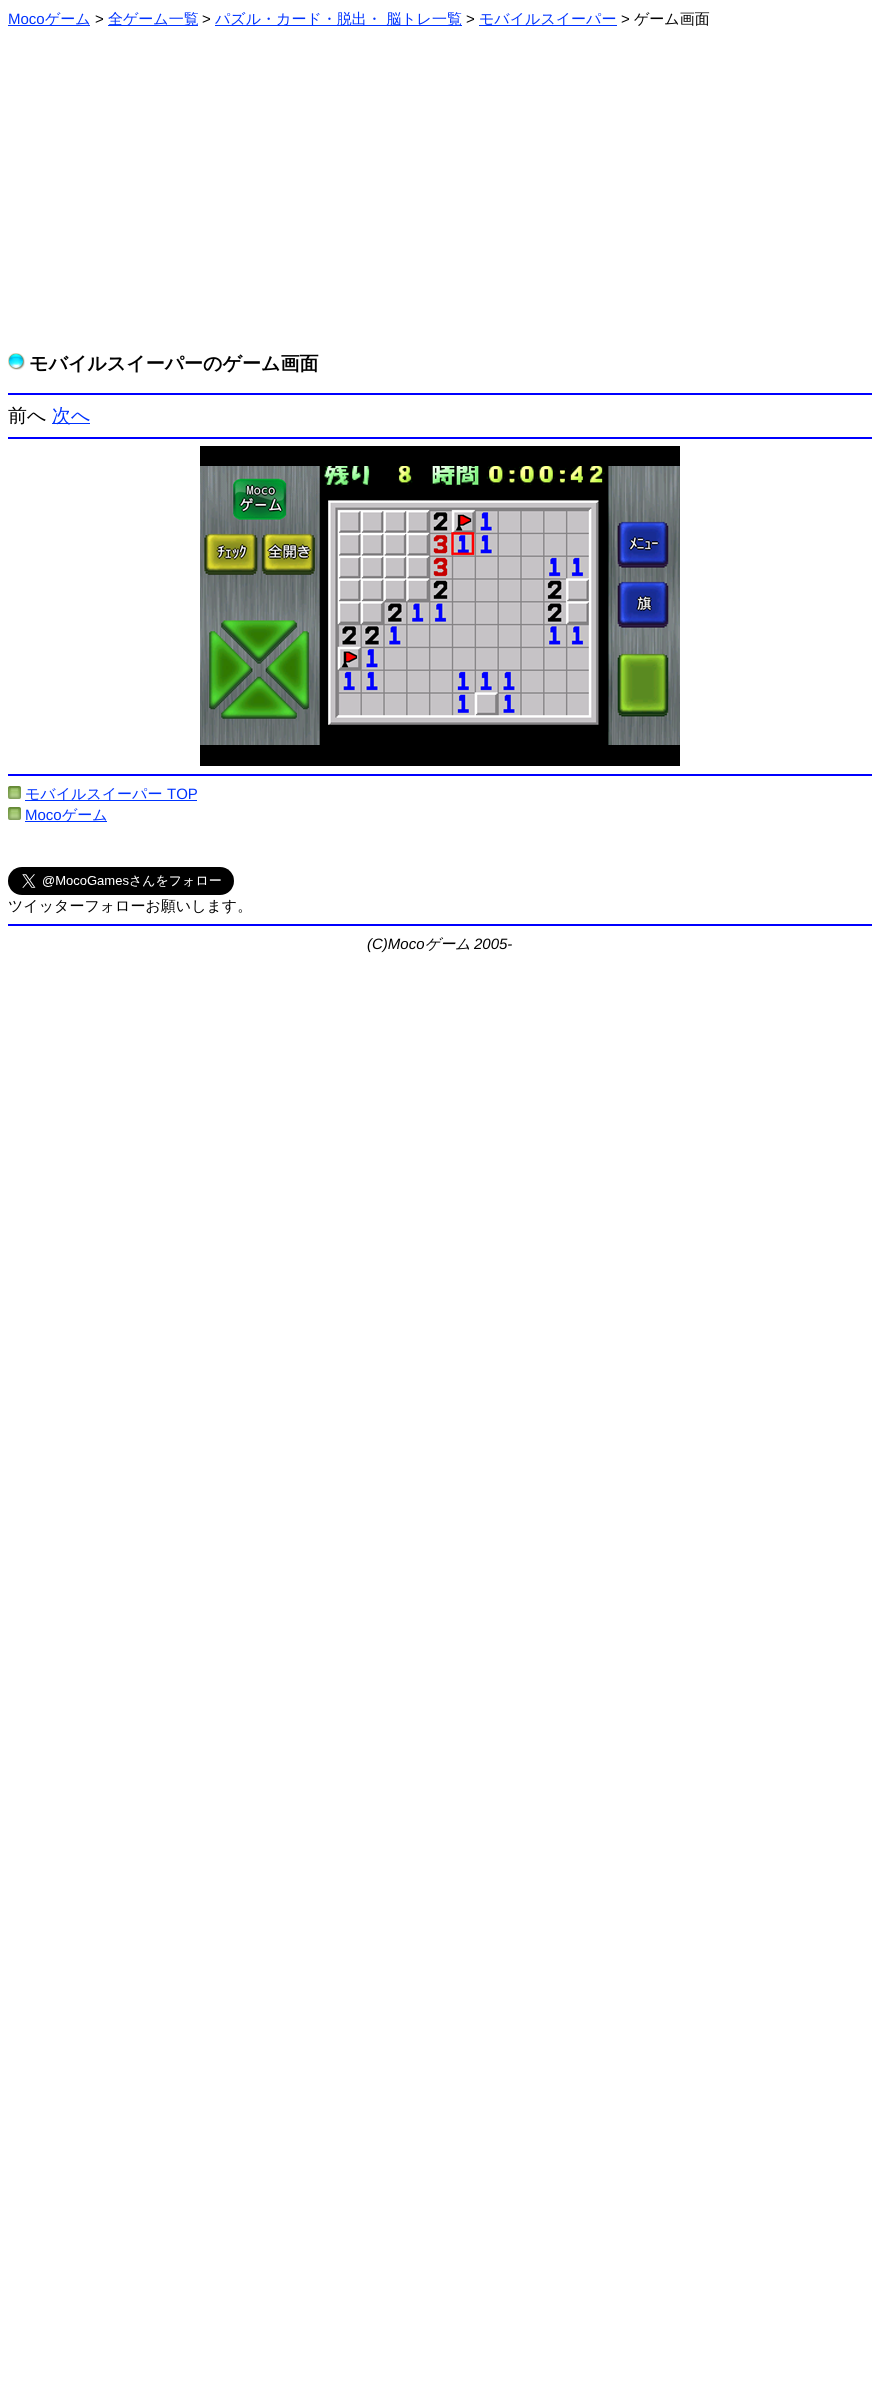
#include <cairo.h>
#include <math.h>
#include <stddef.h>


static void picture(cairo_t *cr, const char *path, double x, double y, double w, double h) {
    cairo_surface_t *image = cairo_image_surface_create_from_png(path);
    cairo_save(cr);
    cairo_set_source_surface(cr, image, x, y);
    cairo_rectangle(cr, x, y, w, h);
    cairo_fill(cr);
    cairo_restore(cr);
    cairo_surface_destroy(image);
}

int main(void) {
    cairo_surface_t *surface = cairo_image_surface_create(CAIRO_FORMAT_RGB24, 880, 2385);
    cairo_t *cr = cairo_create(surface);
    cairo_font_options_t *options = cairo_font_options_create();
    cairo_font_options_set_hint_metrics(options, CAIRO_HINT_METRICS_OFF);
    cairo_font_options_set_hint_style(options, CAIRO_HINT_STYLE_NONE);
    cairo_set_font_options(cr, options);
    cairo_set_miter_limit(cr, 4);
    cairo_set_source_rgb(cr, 1, 1, 1);
    cairo_paint(cr);
    cairo_select_font_face(cr, "Liberation Sans", CAIRO_FONT_SLANT_NORMAL, CAIRO_FONT_WEIGHT_NORMAL);
    cairo_set_font_size(cr, 15);
    cairo_set_source_rgb(cr, 0, 0.2, 1);
    cairo_move_to(cr, 8, 24);
    cairo_show_text(cr, "Moco");
    cairo_rectangle(cr, 8, 25, 82, 1);
    cairo_fill(cr);
    cairo_select_font_face(cr, "WenQuanYi Zen Hei Medium", CAIRO_FONT_SLANT_NORMAL, CAIRO_FONT_WEIGHT_NORMAL);
    cairo_move_to(cr, 45, 24);
    cairo_show_text(cr, "ゲーム");
    cairo_select_font_face(cr, "Liberation Sans", CAIRO_FONT_SLANT_NORMAL, CAIRO_FONT_WEIGHT_NORMAL);
    cairo_set_source_rgb(cr, 0, 0, 0);
    cairo_move_to(cr, 95, 24);
    cairo_show_text(cr, ">");
    cairo_set_source_rgb(cr, 0, 0.2, 1);
    cairo_rectangle(cr, 108, 25, 90, 1);
    cairo_fill(cr);
    cairo_select_font_face(cr, "WenQuanYi Zen Hei Medium", CAIRO_FONT_SLANT_NORMAL, CAIRO_FONT_WEIGHT_NORMAL);
    cairo_move_to(cr, 108, 24);
    cairo_show_text(cr, "全ゲーム一覧");
    cairo_select_font_face(cr, "Liberation Sans", CAIRO_FONT_SLANT_NORMAL, CAIRO_FONT_WEIGHT_NORMAL);
    cairo_set_source_rgb(cr, 0, 0, 0);
    cairo_move_to(cr, 202, 24);
    cairo_show_text(cr, ">");
    cairo_set_source_rgb(cr, 0, 0.2, 1);
    cairo_rectangle(cr, 215, 25, 247, 1);
    cairo_fill(cr);
    cairo_select_font_face(cr, "WenQuanYi Zen Hei Medium", CAIRO_FONT_SLANT_NORMAL, CAIRO_FONT_WEIGHT_NORMAL);
    cairo_move_to(cr, 215, 24);
    cairo_show_text(cr, "パズル・カード・脱出・ 脳トレ一覧");
    cairo_select_font_face(cr, "Liberation Sans", CAIRO_FONT_SLANT_NORMAL, CAIRO_FONT_WEIGHT_NORMAL);
    cairo_set_source_rgb(cr, 0, 0, 0);
    cairo_move_to(cr, 466, 24);
    cairo_show_text(cr, ">");
    cairo_set_source_rgb(cr, 0, 0.2, 1);
    cairo_rectangle(cr, 479, 25, 138, 1);
    cairo_fill(cr);
    cairo_select_font_face(cr, "WenQuanYi Zen Hei Medium", CAIRO_FONT_SLANT_NORMAL, CAIRO_FONT_WEIGHT_NORMAL);
    cairo_move_to(cr, 479, 24);
    cairo_show_text(cr, "モバイルスイーパー");
    cairo_select_font_face(cr, "Liberation Sans", CAIRO_FONT_SLANT_NORMAL, CAIRO_FONT_WEIGHT_NORMAL);
    cairo_set_source_rgb(cr, 0, 0, 0);
    cairo_move_to(cr, 621, 24);
    cairo_show_text(cr, ">");
    cairo_select_font_face(cr, "WenQuanYi Zen Hei Medium", CAIRO_FONT_SLANT_NORMAL, CAIRO_FONT_WEIGHT_NORMAL);
    cairo_move_to(cr, 634, 24);
    cairo_show_text(cr, "ゲーム画面");
    picture(cr, "img1.png", 8, 353, 17, 17);
    cairo_select_font_face(cr, "WenQuanYi Zen Hei", CAIRO_FONT_SLANT_NORMAL, CAIRO_FONT_WEIGHT_BOLD);
    cairo_set_font_size(cr, 19);
    cairo_move_to(cr, 29, 370);
    cairo_show_text(cr, "モバイルスイーパーのゲーム画面");
    cairo_set_source_rgb(cr, 0, 0, 1);
    cairo_rectangle(cr, 8, 393, 864, 2);
    cairo_fill(cr);
    cairo_select_font_face(cr, "WenQuanYi Zen Hei Medium", CAIRO_FONT_SLANT_NORMAL, CAIRO_FONT_WEIGHT_NORMAL);
    cairo_set_source_rgb(cr, 0, 0, 0);
    cairo_move_to(cr, 8, 422);
    cairo_show_text(cr, "前へ");
    cairo_set_source_rgb(cr, 0, 0.2, 1);
    cairo_rectangle(cr, 52, 423, 38, 1);
    cairo_fill(cr);
    cairo_move_to(cr, 52, 422);
    cairo_show_text(cr, "次へ");
    cairo_set_source_rgb(cr, 0, 0, 1);
    cairo_rectangle(cr, 8, 437, 864, 2);
    cairo_fill(cr);
    picture(cr, "img2.png", 200, 446, 480, 320);
    cairo_rectangle(cr, 8, 774, 864, 2);
    cairo_fill(cr);
    picture(cr, "img3.png", 8, 786, 13, 13);
    cairo_set_source_rgb(cr, 0, 0.2, 1);
    cairo_rectangle(cr, 25, 800, 172, 1);
    cairo_fill(cr);
    cairo_set_font_size(cr, 15);
    cairo_move_to(cr, 25, 799);
    cairo_show_text(cr, "モバイルスイーパー");
    cairo_select_font_face(cr, "Liberation Sans", CAIRO_FONT_SLANT_NORMAL, CAIRO_FONT_WEIGHT_NORMAL);
    cairo_move_to(cr, 167, 799);
    cairo_show_text(cr, "TOP");
    picture(cr, "img3.png", 8, 807, 13, 13);
    cairo_move_to(cr, 25, 820);
    cairo_show_text(cr, "Moco");
    cairo_rectangle(cr, 25, 821, 82, 1);
    cairo_fill(cr);
    cairo_select_font_face(cr, "WenQuanYi Zen Hei Medium", CAIRO_FONT_SLANT_NORMAL, CAIRO_FONT_WEIGHT_NORMAL);
    cairo_move_to(cr, 62, 820);
    cairo_show_text(cr, "ゲーム");
    picture(cr, "img4.png", 8, 867, 226, 28);
    cairo_set_source_rgb(cr, 0, 0, 0);
    cairo_move_to(cr, 8, 911);
    cairo_show_text(cr, "ツイッターフォローお願いします。");
    cairo_set_source_rgb(cr, 0, 0, 1);
    cairo_rectangle(cr, 8, 924, 864, 2);
    cairo_fill(cr);
    cairo_select_font_face(cr, "Liberation Sans", CAIRO_FONT_SLANT_ITALIC, CAIRO_FONT_WEIGHT_NORMAL);
    cairo_set_source_rgb(cr, 0, 0, 0);
    cairo_move_to(cr, 367, 949);
    cairo_show_text(cr, "(C)Moco");
    cairo_select_font_face(cr, "WenQuanYi Zen Hei Medium", CAIRO_FONT_SLANT_ITALIC, CAIRO_FONT_WEIGHT_NORMAL);
    cairo_move_to(cr, 425, 949);
    cairo_show_text(cr, "ゲーム");
    cairo_select_font_face(cr, "Liberation Sans", CAIRO_FONT_SLANT_ITALIC, CAIRO_FONT_WEIGHT_NORMAL);
    cairo_move_to(cr, 474, 949);
    cairo_show_text(cr, "2005-");
    cairo_surface_write_to_png(surface, "page.png");
    cairo_font_options_destroy(options);
    cairo_destroy(cr);
    cairo_surface_destroy(surface);
    return 0;
}
